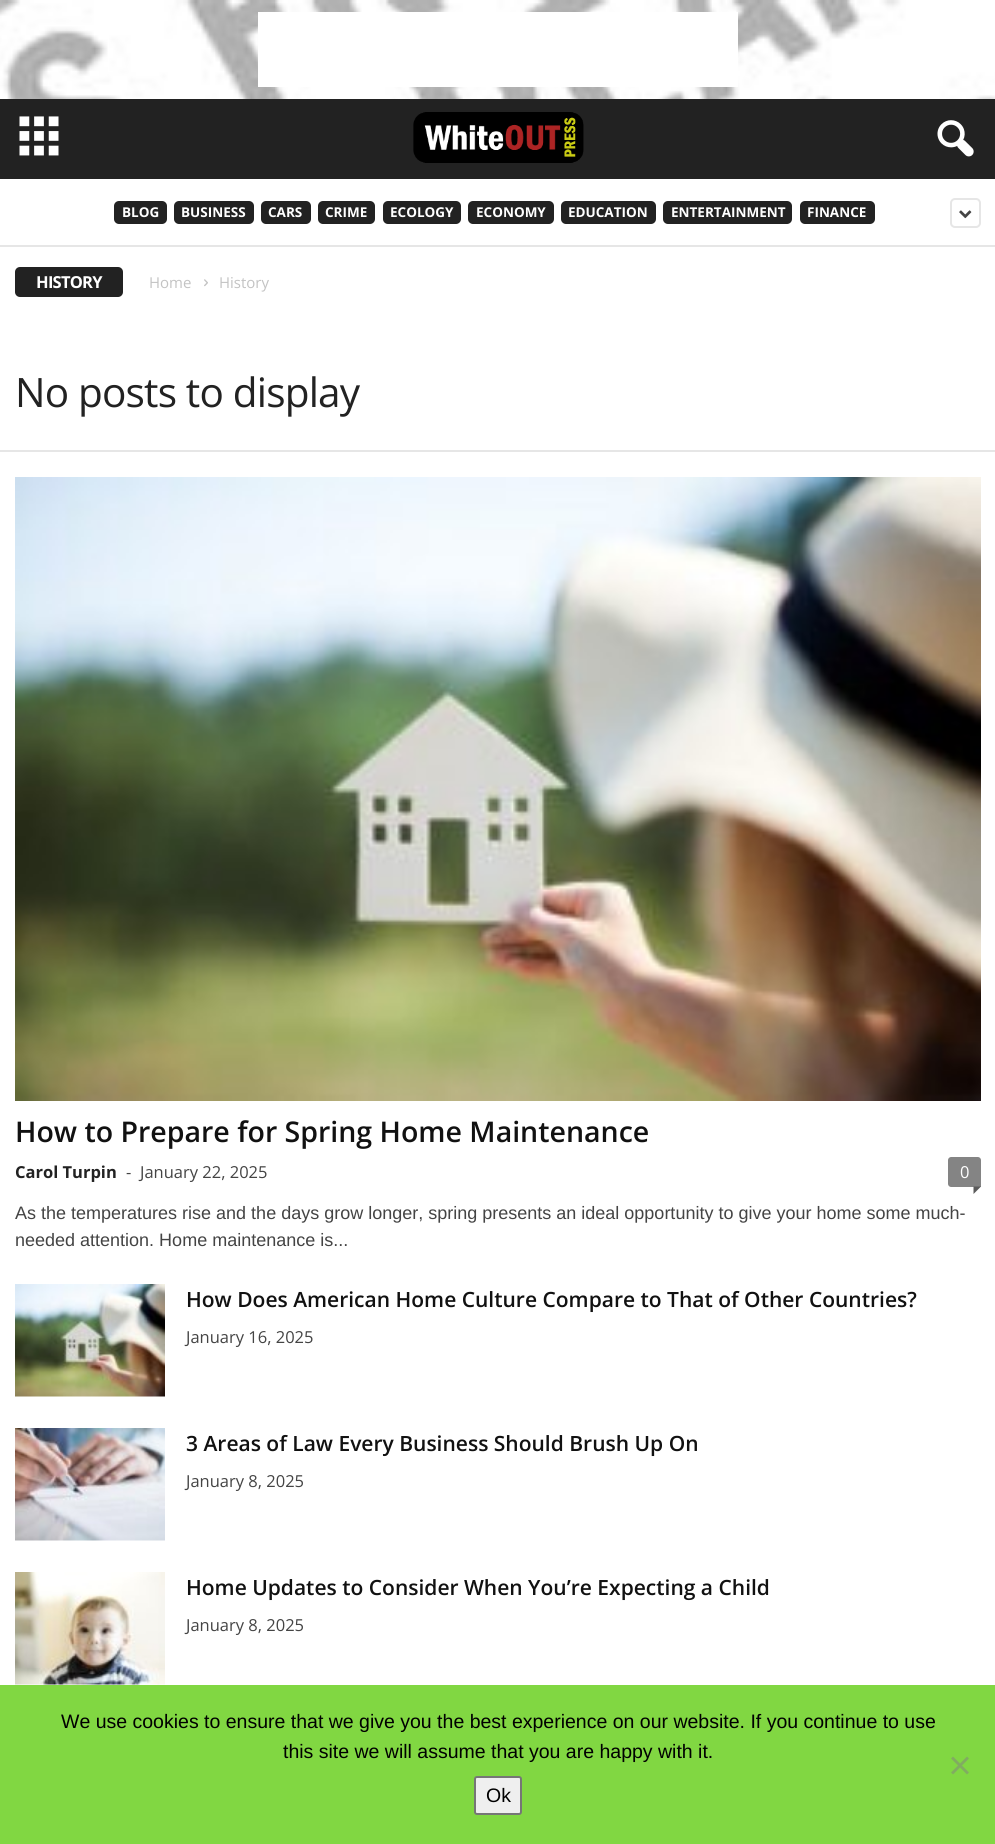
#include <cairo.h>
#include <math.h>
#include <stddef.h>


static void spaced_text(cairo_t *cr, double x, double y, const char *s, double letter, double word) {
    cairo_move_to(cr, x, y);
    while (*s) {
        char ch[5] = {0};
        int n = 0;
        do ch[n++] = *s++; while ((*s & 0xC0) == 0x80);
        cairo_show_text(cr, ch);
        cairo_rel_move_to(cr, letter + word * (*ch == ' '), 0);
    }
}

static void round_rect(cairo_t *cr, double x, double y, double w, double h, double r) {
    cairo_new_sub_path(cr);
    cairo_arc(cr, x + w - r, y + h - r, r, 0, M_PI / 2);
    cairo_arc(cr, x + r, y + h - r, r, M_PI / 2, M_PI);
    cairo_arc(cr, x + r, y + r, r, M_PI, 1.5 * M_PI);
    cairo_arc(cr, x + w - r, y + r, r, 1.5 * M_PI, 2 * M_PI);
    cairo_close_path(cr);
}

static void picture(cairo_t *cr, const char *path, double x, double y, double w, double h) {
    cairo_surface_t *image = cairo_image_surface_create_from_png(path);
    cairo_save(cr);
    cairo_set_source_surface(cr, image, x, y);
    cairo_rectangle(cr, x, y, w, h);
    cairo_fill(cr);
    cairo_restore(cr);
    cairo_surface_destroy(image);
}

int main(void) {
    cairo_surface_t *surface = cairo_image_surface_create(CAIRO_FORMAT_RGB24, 995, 1844);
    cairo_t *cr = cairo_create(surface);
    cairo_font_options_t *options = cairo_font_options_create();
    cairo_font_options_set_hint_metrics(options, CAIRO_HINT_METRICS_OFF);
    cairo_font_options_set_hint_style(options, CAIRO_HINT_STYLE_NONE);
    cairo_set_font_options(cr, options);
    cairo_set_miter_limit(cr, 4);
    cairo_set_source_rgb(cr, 1, 1, 1);
    cairo_paint(cr);
    picture(cr, "img1.png", 0, 0, 995, 99);
    cairo_set_source_rgb(cr, 1, 1, 1);
    cairo_rectangle(cr, 258, 12, 480, 75);
    cairo_fill(cr);
    cairo_set_source_rgb(cr, 0.133, 0.133, 0.133);
    cairo_rectangle(cr, 0, 99, 995, 80);
    cairo_fill(cr);
    picture(cr, "img2.png", 19, 116, 40, 40);
    picture(cr, "img3.png", 413, 112, 171, 51);
    picture(cr, "img4.png", 937, 120, 37, 37);
    round_rect(cr, 114, 201, 53, 23, 5);
    cairo_fill(cr);
    cairo_select_font_face(cr, "Open Sans", CAIRO_FONT_SLANT_NORMAL, CAIRO_FONT_WEIGHT_BOLD);
    cairo_set_font_size(cr, 13.5);
    cairo_set_source_rgb(cr, 1, 1, 1);
    cairo_move_to(cr, 122, 217);
    cairo_show_text(cr, "BLOG");
    cairo_set_source_rgb(cr, 0.133, 0.133, 0.133);
    round_rect(cr, 174, 201, 80, 23, 5);
    cairo_fill(cr);
    cairo_set_source_rgb(cr, 1, 1, 1);
    cairo_move_to(cr, 181, 217);
    cairo_show_text(cr, "BUSINESS");
    cairo_set_source_rgb(cr, 0.133, 0.133, 0.133);
    round_rect(cr, 261, 201, 50, 23, 5);
    cairo_fill(cr);
    cairo_set_source_rgb(cr, 1, 1, 1);
    cairo_move_to(cr, 268, 217);
    cairo_show_text(cr, "CARS");
    cairo_set_source_rgb(cr, 0.133, 0.133, 0.133);
    round_rect(cr, 318, 201, 57, 23, 5);
    cairo_fill(cr);
    cairo_set_source_rgb(cr, 1, 1, 1);
    cairo_move_to(cr, 325, 217);
    cairo_show_text(cr, "CRIME");
    cairo_set_source_rgb(cr, 0.133, 0.133, 0.133);
    round_rect(cr, 383, 201, 78, 23, 5);
    cairo_fill(cr);
    cairo_set_source_rgb(cr, 1, 1, 1);
    cairo_move_to(cr, 390, 217);
    cairo_show_text(cr, "ECOLOGY");
    cairo_set_source_rgb(cr, 0.133, 0.133, 0.133);
    round_rect(cr, 468, 201, 86, 23, 5);
    cairo_fill(cr);
    cairo_set_source_rgb(cr, 1, 1, 1);
    cairo_move_to(cr, 476, 217);
    cairo_show_text(cr, "ECONOMY");
    cairo_set_source_rgb(cr, 0.133, 0.133, 0.133);
    round_rect(cr, 561, 201, 95, 23, 5);
    cairo_fill(cr);
    cairo_set_source_rgb(cr, 1, 1, 1);
    cairo_move_to(cr, 568, 217);
    cairo_show_text(cr, "EDUCATION");
    cairo_set_source_rgb(cr, 0.133, 0.133, 0.133);
    round_rect(cr, 663, 201, 129, 23, 5);
    cairo_fill(cr);
    cairo_set_source_rgb(cr, 1, 1, 1);
    cairo_move_to(cr, 671, 217);
    cairo_show_text(cr, "ENTERTAINMENT");
    cairo_set_source_rgb(cr, 0.133, 0.133, 0.133);
    round_rect(cr, 800, 201, 75, 23, 5);
    cairo_fill(cr);
    cairo_set_source_rgb(cr, 1, 1, 1);
    cairo_move_to(cr, 807, 217);
    cairo_show_text(cr, "FINANCE");
    round_rect(cr, 951, 199, 29, 28, 4);
    cairo_set_source_rgb(cr, 0.902, 0.902, 0.902);
    cairo_stroke(cr);
    picture(cr, "img5.png", 959, 210, 13, 9);
    cairo_rectangle(cr, 0, 245, 995, 2);
    cairo_fill(cr);
    cairo_set_source_rgb(cr, 0.133, 0.133, 0.133);
    round_rect(cr, 15, 267, 108, 30, 5);
    cairo_fill(cr);
    cairo_set_font_size(cr, 16.5);
    cairo_set_source_rgb(cr, 1, 1, 1);
    spaced_text(cr, 36, 288, "HISTORY", -0.75, 0);
    cairo_select_font_face(cr, "Open Sans", CAIRO_FONT_SLANT_NORMAL, CAIRO_FONT_WEIGHT_NORMAL);
    cairo_set_font_size(cr, 15);
    cairo_set_source_rgb(cr, 0.765, 0.765, 0.765);
    cairo_move_to(cr, 149, 288);
    cairo_show_text(cr, "Home");
    picture(cr, "img6.png", 204, 279, 4, 8);
    cairo_move_to(cr, 219, 288);
    cairo_show_text(cr, "History");
    cairo_set_font_size(cr, 40.5);
    cairo_set_source_rgb(cr, 0.133, 0.133, 0.133);
    spaced_text(cr, 15, 407, "No posts to display", -0.8, 0);
    cairo_set_source_rgb(cr, 0.902, 0.902, 0.902);
    cairo_rectangle(cr, 0, 450, 995, 2);
    cairo_fill(cr);
    picture(cr, "img7.png", 15, 477, 966, 624);
    cairo_select_font_face(cr, "Open Sans SemiBold", CAIRO_FONT_SLANT_NORMAL, CAIRO_FONT_WEIGHT_NORMAL);
    cairo_set_font_size(cr, 28.5);
    cairo_set_source_rgb(cr, 0.067, 0.067, 0.067);
    cairo_move_to(cr, 15, 1142);
    cairo_show_text(cr, "How to Prepare for Spring Home Maintenance");
    cairo_select_font_face(cr, "Open Sans", CAIRO_FONT_SLANT_NORMAL, CAIRO_FONT_WEIGHT_BOLD);
    cairo_set_font_size(cr, 16.5);
    cairo_set_source_rgb(cr, 0.133, 0.133, 0.133);
    cairo_move_to(cr, 15, 1178);
    cairo_show_text(cr, "Carol Turpin");
    cairo_select_font_face(cr, "Open Sans", CAIRO_FONT_SLANT_NORMAL, CAIRO_FONT_WEIGHT_NORMAL);
    cairo_set_source_rgb(cr, 0.267, 0.267, 0.267);
    cairo_move_to(cr, 126, 1178);
    cairo_show_text(cr, "-");
    cairo_move_to(cr, 140, 1178);
    cairo_show_text(cr, "January 22, 2025");
    cairo_set_source_rgb(cr, 0.518, 0.518, 0.518);
    cairo_new_path(cr);
    cairo_move_to(cr, 951, 1157);
    cairo_line_to(cr, 978, 1157);
    cairo_curve_to(cr, 979.5, 1157, 981, 1158.5, 981, 1160);
    cairo_line_to(cr, 981, 1187);
    cairo_line_to(cr, 951, 1187);
    cairo_curve_to(cr, 949.5, 1187, 948, 1185.5, 948, 1184);
    cairo_line_to(cr, 948, 1160);
    cairo_curve_to(cr, 948, 1158.5, 949.5, 1157, 951, 1157);
    cairo_close_path(cr);
    cairo_fill(cr);
    cairo_set_source_rgb(cr, 1, 1, 1);
    cairo_move_to(cr, 960, 1178);
    cairo_show_text(cr, "0");
    cairo_set_source_rgb(cr, 0.357, 0.357, 0.357);
    cairo_new_path(cr);
    cairo_move_to(cr, 973.5, 1186.5);
    cairo_line_to(cr, 981, 1186.5);
    cairo_line_to(cr, 973.5, 1194);
    cairo_close_path(cr);
    cairo_fill(cr);
    cairo_select_font_face(cr, "Liberation Sans", CAIRO_FONT_SLANT_NORMAL, CAIRO_FONT_WEIGHT_NORMAL);
    cairo_set_font_size(cr, 18);
    cairo_set_source_rgb(cr, 0.267, 0.267, 0.267);
    cairo_move_to(cr, 15, 1219);
    cairo_show_text(cr, "As the temperatures rise and the days grow longer, spring presents an ideal opportunity to give your home some much-");
    cairo_move_to(cr, 15, 1246);
    cairo_show_text(cr, "needed attention. Home maintenance is...");
    picture(cr, "img8.png", 15, 1284, 150, 113);
    cairo_select_font_face(cr, "Open Sans SemiBold", CAIRO_FONT_SLANT_NORMAL, CAIRO_FONT_WEIGHT_NORMAL);
    cairo_set_font_size(cr, 21);
    cairo_set_source_rgb(cr, 0.067, 0.067, 0.067);
    cairo_move_to(cr, 186, 1307);
    cairo_show_text(cr, "How Does American Home Culture Compare to That of Other Countries?");
    cairo_select_font_face(cr, "Open Sans", CAIRO_FONT_SLANT_NORMAL, CAIRO_FONT_WEIGHT_NORMAL);
    cairo_set_font_size(cr, 16.5);
    cairo_set_source_rgb(cr, 0.267, 0.267, 0.267);
    cairo_move_to(cr, 186, 1343);
    cairo_show_text(cr, "January 16, 2025");
    picture(cr, "img9.png", 15, 1428, 150, 113);
    cairo_select_font_face(cr, "Open Sans SemiBold", CAIRO_FONT_SLANT_NORMAL, CAIRO_FONT_WEIGHT_NORMAL);
    cairo_set_font_size(cr, 21);
    cairo_set_source_rgb(cr, 0.067, 0.067, 0.067);
    cairo_move_to(cr, 186, 1451);
    cairo_show_text(cr, "3 Areas of Law Every Business Should Brush Up On");
    cairo_select_font_face(cr, "Open Sans", CAIRO_FONT_SLANT_NORMAL, CAIRO_FONT_WEIGHT_NORMAL);
    cairo_set_font_size(cr, 16.5);
    cairo_set_source_rgb(cr, 0.267, 0.267, 0.267);
    cairo_move_to(cr, 186, 1487);
    cairo_show_text(cr, "January 8, 2025");
    picture(cr, "img10.png", 15, 1572, 150, 113);
    cairo_select_font_face(cr, "Open Sans SemiBold", CAIRO_FONT_SLANT_NORMAL, CAIRO_FONT_WEIGHT_NORMAL);
    cairo_set_font_size(cr, 21);
    cairo_set_source_rgb(cr, 0.067, 0.067, 0.067);
    cairo_move_to(cr, 186, 1595);
    cairo_show_text(cr, "Home Updates to Consider When You’re Expecting a Child");
    cairo_select_font_face(cr, "Open Sans", CAIRO_FONT_SLANT_NORMAL, CAIRO_FONT_WEIGHT_NORMAL);
    cairo_set_font_size(cr, 16.5);
    cairo_set_source_rgb(cr, 0.267, 0.267, 0.267);
    cairo_move_to(cr, 186, 1631);
    cairo_show_text(cr, "January 8, 2025");
    cairo_set_source_rgb(cr, 0.506, 0.843, 0.259);
    cairo_rectangle(cr, 0, 1685, 995, 159);
    cairo_fill(cr);
    cairo_select_font_face(cr, "Liberation Sans", CAIRO_FONT_SLANT_NORMAL, CAIRO_FONT_WEIGHT_NORMAL);
    cairo_set_font_size(cr, 19.5);
    cairo_set_source_rgb(cr, 0, 0, 0);
    cairo_move_to(cr, 61, 1728);
    cairo_show_text(cr, "We use cookies to ensure that we give you the best experience on our website. If you continue to use");
    cairo_move_to(cr, 283, 1758);
    cairo_show_text(cr, "this site we will assume that you are happy with it.");
    cairo_set_source_rgb(cr, 0.506, 0.675, 0.38);
    cairo_new_path(cr);
    cairo_move_to(cr, 967, 1756.5);
    cairo_line_to(cr, 969, 1758.5);
    cairo_line_to(cr, 953, 1774.5);
    cairo_line_to(cr, 951, 1772.5);
    cairo_close_path(cr);
    cairo_fill(cr);
    cairo_new_path(cr);
    cairo_move_to(cr, 951, 1758.5);
    cairo_line_to(cr, 953, 1756.5);
    cairo_line_to(cr, 969, 1772.5);
    cairo_line_to(cr, 967, 1774.5);
    cairo_close_path(cr);
    cairo_fill(cr);
    cairo_set_source_rgb(cr, 0.937, 0.937, 0.937);
    round_rect(cr, 475, 1777, 46, 37, 2);
    cairo_fill_preserve(cr);
    cairo_set_source_rgb(cr, 0.463, 0.463, 0.463);
    cairo_stroke(cr);
    cairo_set_source_rgb(cr, 0, 0, 0);
    cairo_move_to(cr, 486, 1802);
    cairo_show_text(cr, "Ok");
    cairo_surface_write_to_png(surface, "page.png");
    cairo_font_options_destroy(options);
    cairo_destroy(cr);
    cairo_surface_destroy(surface);
    return 0;
}
